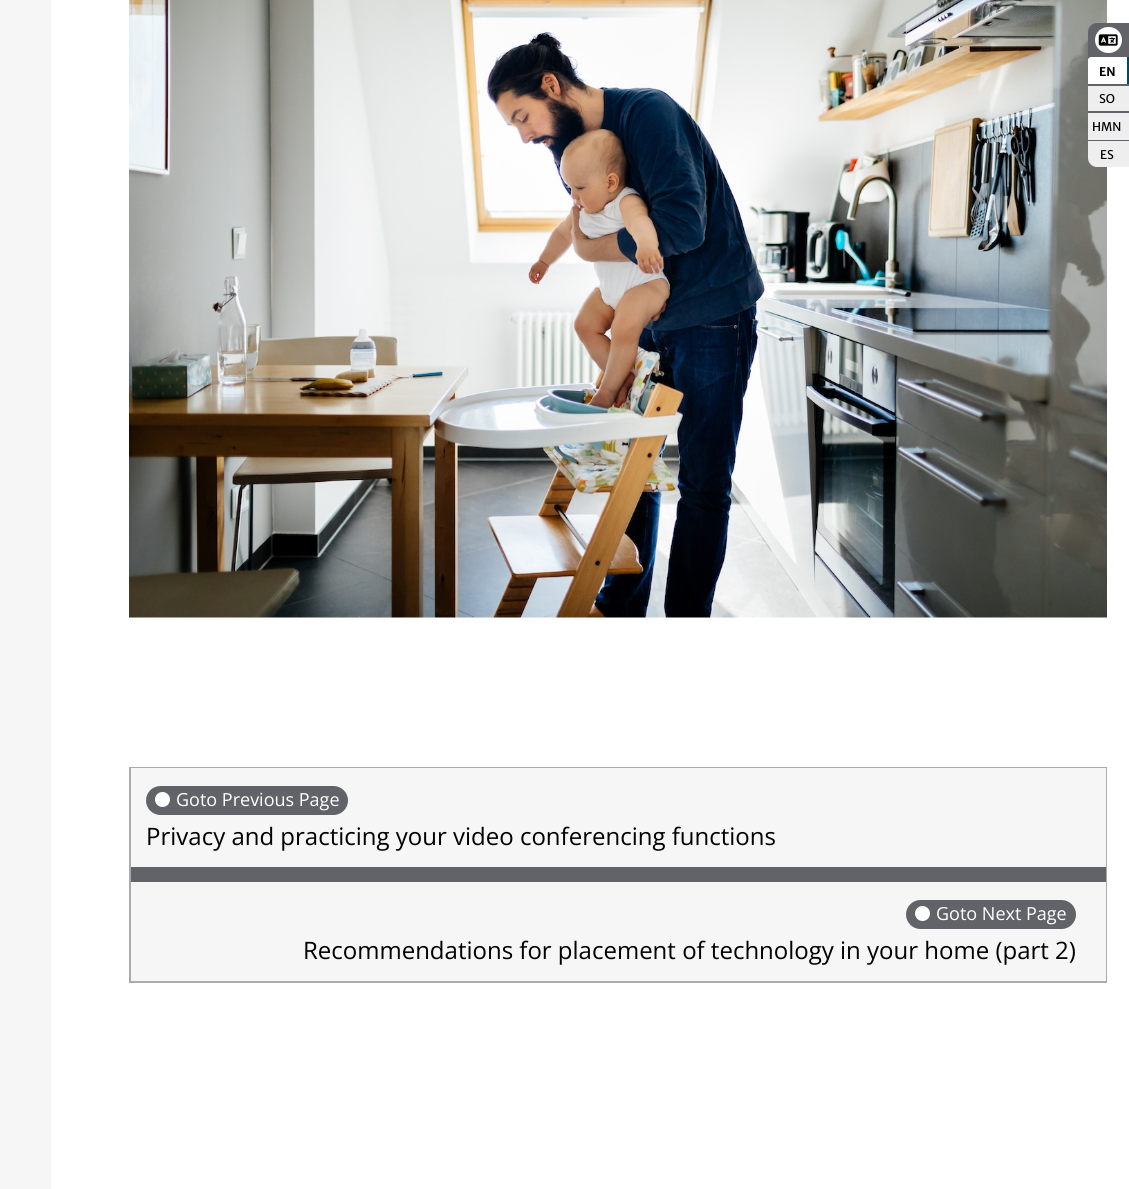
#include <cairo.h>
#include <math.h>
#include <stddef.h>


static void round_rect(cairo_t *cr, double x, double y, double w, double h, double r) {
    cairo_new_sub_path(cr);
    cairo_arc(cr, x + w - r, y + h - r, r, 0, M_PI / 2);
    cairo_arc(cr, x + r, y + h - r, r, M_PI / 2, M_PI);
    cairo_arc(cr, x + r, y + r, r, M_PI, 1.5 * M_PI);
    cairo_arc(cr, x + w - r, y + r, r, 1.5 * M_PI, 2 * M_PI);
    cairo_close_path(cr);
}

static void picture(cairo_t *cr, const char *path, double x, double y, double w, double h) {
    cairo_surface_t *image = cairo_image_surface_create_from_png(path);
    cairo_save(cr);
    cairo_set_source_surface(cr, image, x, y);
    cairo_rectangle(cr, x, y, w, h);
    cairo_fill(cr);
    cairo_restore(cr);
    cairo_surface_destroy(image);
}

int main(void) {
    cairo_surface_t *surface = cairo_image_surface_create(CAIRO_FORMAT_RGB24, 1129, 1189);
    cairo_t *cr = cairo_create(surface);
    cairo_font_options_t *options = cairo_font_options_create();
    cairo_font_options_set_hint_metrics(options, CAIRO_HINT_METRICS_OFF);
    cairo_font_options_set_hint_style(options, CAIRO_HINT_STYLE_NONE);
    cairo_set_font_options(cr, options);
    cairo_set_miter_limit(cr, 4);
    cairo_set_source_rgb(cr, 1, 1, 1);
    cairo_paint(cr);
    picture(cr, "img2.png", 129, 0, 978, 618);
    cairo_set_source_rgb(cr, 0.384, 0.388, 0.408);
    cairo_new_path(cr);
    cairo_move_to(cr, 1097, 23);
    cairo_line_to(cr, 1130, 23);
    cairo_line_to(cr, 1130, 167);
    cairo_line_to(cr, 1097, 167);
    cairo_curve_to(cr, 1092, 167, 1088, 163, 1088, 158);
    cairo_line_to(cr, 1088, 32);
    cairo_curve_to(cr, 1088, 27, 1092, 23, 1097, 23);
    cairo_close_path(cr);
    cairo_fill(cr);
    cairo_set_source_rgb(cr, 1, 1, 1);
    round_rect(cr, 1095, 27, 27, 26, 13);
    cairo_fill(cr);
    picture(cr, "img1.png", 1098, 34, 20, 12);
    cairo_new_path(cr);
    cairo_move_to(cr, 1091, 57);
    cairo_line_to(cr, 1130, 57);
    cairo_line_to(cr, 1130, 84);
    cairo_line_to(cr, 1088, 84);
    cairo_line_to(cr, 1088, 60);
    cairo_curve_to(cr, 1088, 58.5, 1089.5, 57, 1091, 57);
    cairo_close_path(cr);
    cairo_fill(cr);
    cairo_set_source_rgb(cr, 0, 0.286, 0.388);
    cairo_rectangle(cr, 1127, 57, 2, 27);
    cairo_fill(cr);
    cairo_select_font_face(cr, "Merriweather Sans", CAIRO_FONT_SLANT_NORMAL, CAIRO_FONT_WEIGHT_BOLD);
    cairo_set_font_size(cr, 12);
    cairo_set_source_rgb(cr, 0, 0, 0);
    cairo_move_to(cr, 1099, 76);
    cairo_show_text(cr, "EN");
    cairo_set_source_rgb(cr, 0.933, 0.933, 0.933);
    cairo_rectangle(cr, 1088, 86, 41, 25);
    cairo_fill(cr);
    cairo_select_font_face(cr, "Merriweather Sans", CAIRO_FONT_SLANT_NORMAL, CAIRO_FONT_WEIGHT_NORMAL);
    cairo_set_source_rgb(cr, 0, 0, 0);
    cairo_move_to(cr, 1099, 103);
    cairo_show_text(cr, "SO");
    cairo_set_source_rgb(cr, 0.933, 0.933, 0.933);
    cairo_rectangle(cr, 1088, 113, 41, 27);
    cairo_fill(cr);
    cairo_set_source_rgb(cr, 0, 0, 0);
    cairo_move_to(cr, 1092, 131);
    cairo_show_text(cr, "HMN");
    cairo_set_source_rgb(cr, 0.933, 0.933, 0.933);
    cairo_new_path(cr);
    cairo_move_to(cr, 1088, 141);
    cairo_line_to(cr, 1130, 141);
    cairo_line_to(cr, 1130, 167);
    cairo_line_to(cr, 1097, 167);
    cairo_curve_to(cr, 1092, 167, 1088, 163, 1088, 158);
    cairo_close_path(cr);
    cairo_fill(cr);
    cairo_set_source_rgb(cr, 0, 0, 0);
    cairo_move_to(cr, 1100, 159);
    cairo_show_text(cr, "ES");
    cairo_set_source_rgb(cr, 0.961, 0.961, 0.961);
    cairo_rectangle(cr, 0, 0, 51, 1189);
    cairo_fill(cr);
    cairo_rectangle(cr, 130, 768, 976, 214);
    cairo_set_source_rgb(cr, 0.667, 0.667, 0.667);
    cairo_stroke(cr);
    cairo_set_source_rgb(cr, 0.961, 0.961, 0.961);
    cairo_rectangle(cr, 131, 768, 975, 213);
    cairo_fill(cr);
    cairo_set_source_rgb(cr, 0.384, 0.388, 0.408);
    cairo_rectangle(cr, 131, 867, 975, 15);
    cairo_fill(cr);
    round_rect(cr, 146, 786, 202, 29, 14.5);
    cairo_fill(cr);
    cairo_set_source_rgb(cr, 1, 1, 1);
    cairo_arc(cr, 162.5, 799.5, 7.5, 0, 2 * M_PI);
    cairo_fill(cr);
    cairo_select_font_face(cr, "Open Sans", CAIRO_FONT_SLANT_NORMAL, CAIRO_FONT_WEIGHT_NORMAL);
    cairo_set_font_size(cr, 18);
    cairo_move_to(cr, 176, 806);
    cairo_show_text(cr, "Goto Previous Page");
    cairo_set_font_size(cr, 24);
    cairo_set_source_rgb(cr, 0, 0, 0);
    cairo_move_to(cr, 146, 845);
    cairo_show_text(cr, "Privacy and practicing your video conferencing functions");
    cairo_set_source_rgb(cr, 0.384, 0.388, 0.408);
    round_rect(cr, 906, 900, 170, 29, 14.5);
    cairo_fill(cr);
    cairo_set_source_rgb(cr, 1, 1, 1);
    cairo_arc(cr, 922.5, 913.5, 7.5, 0, 2 * M_PI);
    cairo_fill(cr);
    cairo_set_font_size(cr, 18);
    cairo_move_to(cr, 936, 920);
    cairo_show_text(cr, "Goto Next Page");
    cairo_set_font_size(cr, 24);
    cairo_set_source_rgb(cr, 0, 0, 0);
    cairo_move_to(cr, 303, 959);
    cairo_show_text(cr, "Recommendations for placement of technology in your home (part 2)");
    cairo_surface_write_to_png(surface, "page.png");
    cairo_font_options_destroy(options);
    cairo_destroy(cr);
    cairo_surface_destroy(surface);
    return 0;
}
